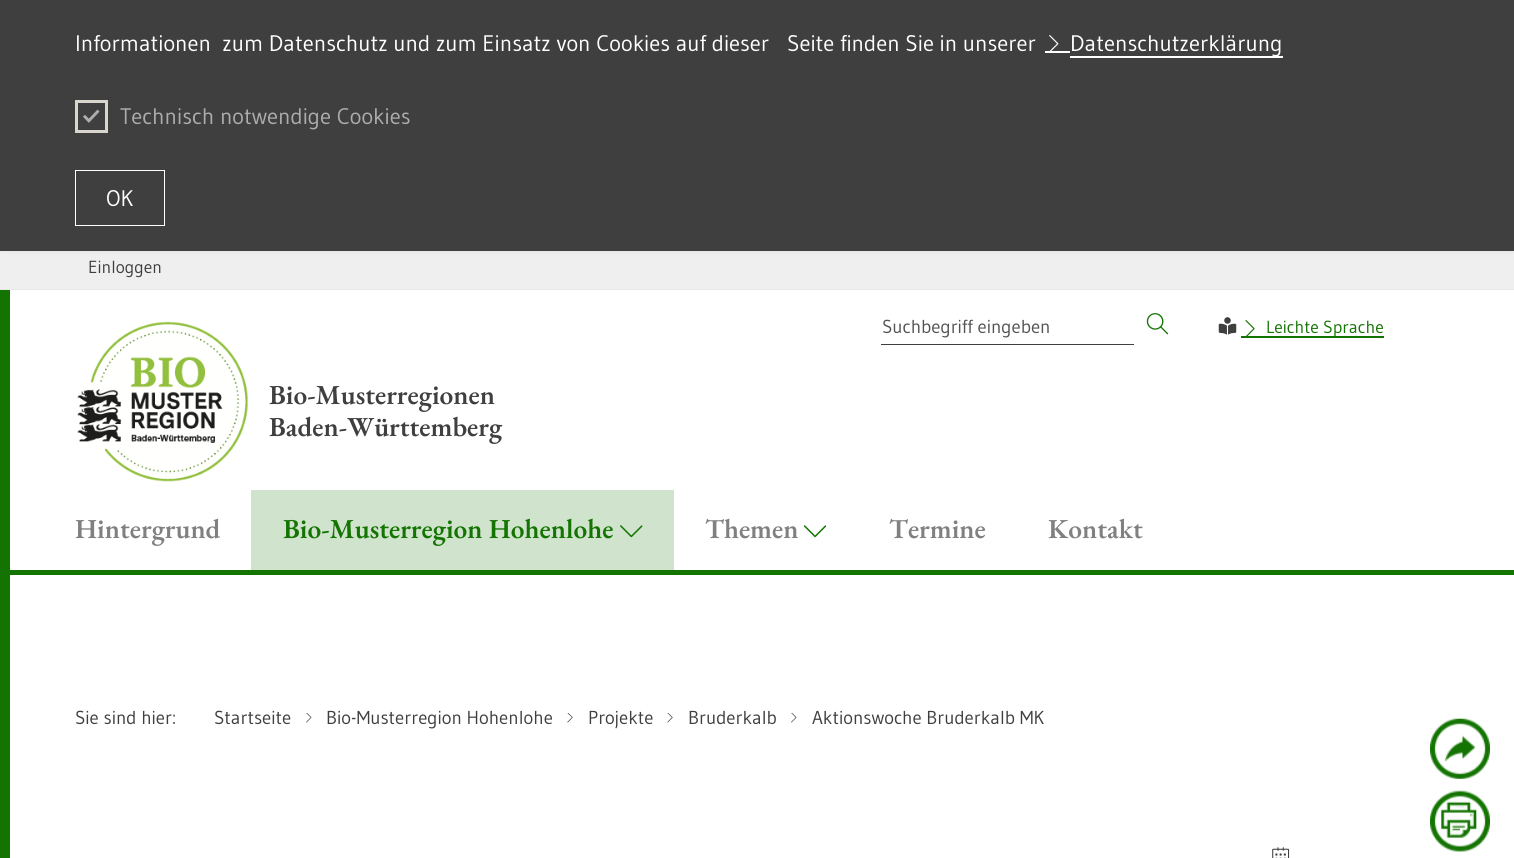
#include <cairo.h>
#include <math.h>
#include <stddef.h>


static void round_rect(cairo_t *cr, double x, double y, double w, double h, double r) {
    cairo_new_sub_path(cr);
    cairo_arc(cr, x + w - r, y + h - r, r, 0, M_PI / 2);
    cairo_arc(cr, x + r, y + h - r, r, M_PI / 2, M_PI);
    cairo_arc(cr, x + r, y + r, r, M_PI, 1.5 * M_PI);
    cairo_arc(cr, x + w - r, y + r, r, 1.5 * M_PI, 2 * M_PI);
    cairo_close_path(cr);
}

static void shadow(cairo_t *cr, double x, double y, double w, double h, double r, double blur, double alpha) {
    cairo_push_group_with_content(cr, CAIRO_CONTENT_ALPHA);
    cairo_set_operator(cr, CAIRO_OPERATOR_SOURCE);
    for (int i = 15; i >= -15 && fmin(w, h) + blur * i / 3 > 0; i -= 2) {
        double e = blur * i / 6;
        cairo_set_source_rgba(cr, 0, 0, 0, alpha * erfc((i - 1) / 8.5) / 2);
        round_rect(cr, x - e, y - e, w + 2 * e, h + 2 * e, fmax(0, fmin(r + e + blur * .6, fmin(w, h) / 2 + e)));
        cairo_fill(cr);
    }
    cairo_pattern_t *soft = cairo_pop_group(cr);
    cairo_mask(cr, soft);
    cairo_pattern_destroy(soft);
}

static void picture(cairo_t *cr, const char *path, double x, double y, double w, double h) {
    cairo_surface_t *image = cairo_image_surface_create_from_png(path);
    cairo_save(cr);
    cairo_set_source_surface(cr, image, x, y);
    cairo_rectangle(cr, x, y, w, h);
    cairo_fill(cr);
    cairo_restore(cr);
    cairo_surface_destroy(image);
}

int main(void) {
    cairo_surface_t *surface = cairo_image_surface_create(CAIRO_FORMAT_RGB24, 1514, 858);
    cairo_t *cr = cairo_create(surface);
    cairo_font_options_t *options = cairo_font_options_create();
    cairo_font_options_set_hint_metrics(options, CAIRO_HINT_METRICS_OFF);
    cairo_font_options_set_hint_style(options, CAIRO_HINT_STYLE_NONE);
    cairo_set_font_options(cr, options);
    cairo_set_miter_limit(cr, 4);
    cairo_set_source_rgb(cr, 1, 1, 1);
    cairo_paint(cr);
    cairo_set_source_rgb(cr, 0.816, 0.89, 0.8);
    cairo_rectangle(cr, 251, 490, 423, 80);
    cairo_fill(cr);
    cairo_set_source_rgb(cr, 0.937, 0.937, 0.937);
    cairo_rectangle(cr, 0, 251, 1514, 38);
    cairo_fill(cr);
    cairo_set_source_rgb(cr, 0, 0, 0);
    shadow(cr, 1, 0, 1513, 249, 0, 3, 0.15);
    cairo_set_source_rgb(cr, 0.247, 0.247, 0.247);
    cairo_rectangle(cr, 0, 0, 1514, 251);
    cairo_fill(cr);
    cairo_select_font_face(cr, "Gudea", CAIRO_FONT_SLANT_NORMAL, CAIRO_FONT_WEIGHT_NORMAL);
    cairo_set_font_size(cr, 22.5);
    cairo_set_source_rgb(cr, 1, 1, 1);
    cairo_move_to(cr, 75, 51);
    cairo_show_text(cr, "Informationen  zum Datenschutz und zum Einsatz von Cookies auf dieser");
    cairo_move_to(cr, 787, 51);
    cairo_show_text(cr, "Seite finden Sie in unserer");
    cairo_save(cr);
    cairo_rectangle(cr, 1070, 30, 213, 28);
    cairo_clip(cr);
    cairo_set_fill_rule(cr, CAIRO_FILL_RULE_EVEN_ODD);
    cairo_new_path(cr);
    cairo_move_to(cr, 946, -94);
    cairo_line_to(cr, 1406, -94);
    cairo_line_to(cr, 1406, 181);
    cairo_line_to(cr, 946, 181);
    cairo_close_path(cr);
    cairo_move_to(cr, 1070, 26);
    cairo_line_to(cr, 1282, 26);
    cairo_curve_to(cr, 1283, 26, 1284, 27, 1284, 28);
    cairo_line_to(cr, 1284, 55);
    cairo_curve_to(cr, 1284, 56, 1283, 56, 1282, 56);
    cairo_line_to(cr, 1070, 56);
    cairo_curve_to(cr, 1069, 56, 1069, 56, 1069, 55);
    cairo_line_to(cr, 1069, 28);
    cairo_curve_to(cr, 1069, 27, 1069, 26, 1070, 26);
    cairo_close_path(cr);
    cairo_fill(cr);
    cairo_restore(cr);
    cairo_save(cr);
    cairo_rectangle(cr, 1045, 35, 25, 18);
    cairo_clip(cr);
    cairo_set_fill_rule(cr, CAIRO_FILL_RULE_EVEN_ODD);
    cairo_new_path(cr);
    cairo_move_to(cr, 921, -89);
    cairo_line_to(cr, 1194, -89);
    cairo_line_to(cr, 1194, 176);
    cairo_line_to(cr, 921, 176);
    cairo_close_path(cr);
    cairo_move_to(cr, 1045, 31);
    cairo_line_to(cr, 1070, 31);
    cairo_curve_to(cr, 1071, 31, 1071, 32, 1071, 32);
    cairo_line_to(cr, 1071, 50);
    cairo_curve_to(cr, 1071, 51, 1071, 51, 1070, 51);
    cairo_line_to(cr, 1045, 51);
    cairo_curve_to(cr, 1044, 51, 1044, 51, 1044, 50);
    cairo_line_to(cr, 1044, 32);
    cairo_curve_to(cr, 1044, 32, 1044, 31, 1045, 31);
    cairo_close_path(cr);
    cairo_fill(cr);
    cairo_restore(cr);
    picture(cr, "img1.png", 1049, 35, 10, 16);
    cairo_move_to(cr, 1070, 51);
    cairo_show_text(cr, "Datenschutzerklärung");
    cairo_rectangle(cr, 76.5, 101.5, 30, 30);
    cairo_set_source_rgb(cr, 0.847, 0.839, 0.804);
    cairo_set_line_width(cr, 3);
    cairo_stroke(cr);
    picture(cr, "img2.png", 83, 109, 17, 14);
    cairo_set_source_rgb(cr, 0.678, 0.678, 0.678);
    cairo_move_to(cr, 120, 124);
    cairo_show_text(cr, "Technisch notwendige Cookies");
    cairo_rectangle(cr, 75.5, 170.5, 89, 55);
    cairo_set_source_rgb(cr, 1, 1, 1);
    cairo_set_line_width(cr, 1);
    cairo_stroke(cr);
    cairo_move_to(cr, 106, 206);
    cairo_show_text(cr, "OK");
    cairo_set_source_rgb(cr, 0.078, 0.455, 0.008);
    cairo_rectangle(cr, 0, 290, 10, 568);
    cairo_fill(cr);
    cairo_set_source_rgb(cr, 0.91, 0.91, 0.91);
    cairo_rectangle(cr, 0, 289, 1514, 1);
    cairo_fill(cr);
    cairo_set_font_size(cr, 17.5);
    cairo_set_source_rgb(cr, 0.247, 0.247, 0.247);
    cairo_move_to(cr, 88, 273);
    cairo_show_text(cr, "Einloggen");
    cairo_set_source_rgb(cr, 0.078, 0.455, 0.008);
    cairo_rectangle(cr, 10, 570, 1504, 5);
    cairo_fill(cr);
    cairo_set_source_rgb(cr, 0.247, 0.247, 0.247);
    cairo_rectangle(cr, 881, 344, 253, 1);
    cairo_fill(cr);
    cairo_set_font_size(cr, 18.75);
    cairo_set_source_rgb(cr, 0.322, 0.322, 0.322);
    cairo_move_to(cr, 882, 333);
    cairo_show_text(cr, "Suchbegriff eingeben");
    picture(cr, "img3.png", 1146, 313, 23, 22);
    picture(cr, "img4.png", 1218, 317, 19, 18);
    cairo_save(cr);
    cairo_rectangle(cr, 1266, 315, 118, 23);
    cairo_clip(cr);
    cairo_set_source_rgb(cr, 0.078, 0.455, 0.008);
    cairo_set_fill_rule(cr, CAIRO_FILL_RULE_EVEN_ODD);
    cairo_new_path(cr);
    cairo_move_to(cr, 1142, 191);
    cairo_line_to(cr, 1508, 191);
    cairo_line_to(cr, 1508, 461);
    cairo_line_to(cr, 1142, 461);
    cairo_close_path(cr);
    cairo_move_to(cr, 1266, 311);
    cairo_line_to(cr, 1384, 311);
    cairo_curve_to(cr, 1384, 311, 1385, 312, 1385, 312);
    cairo_line_to(cr, 1385, 335);
    cairo_curve_to(cr, 1385, 336, 1384, 336, 1384, 336);
    cairo_line_to(cr, 1266, 336);
    cairo_curve_to(cr, 1266, 336, 1265, 336, 1265, 335);
    cairo_line_to(cr, 1265, 312);
    cairo_curve_to(cr, 1265, 312, 1266, 311, 1266, 311);
    cairo_close_path(cr);
    cairo_fill(cr);
    cairo_restore(cr);
    cairo_save(cr);
    cairo_rectangle(cr, 1241, 320, 25, 18);
    cairo_clip(cr);
    cairo_set_source_rgb(cr, 0.078, 0.455, 0.008);
    cairo_set_fill_rule(cr, CAIRO_FILL_RULE_EVEN_ODD);
    cairo_new_path(cr);
    cairo_move_to(cr, 1118, 196);
    cairo_line_to(cr, 1390, 196);
    cairo_line_to(cr, 1390, 461);
    cairo_line_to(cr, 1118, 461);
    cairo_close_path(cr);
    cairo_move_to(cr, 1241, 316);
    cairo_line_to(cr, 1266, 316);
    cairo_curve_to(cr, 1267, 316, 1268, 317, 1268, 318);
    cairo_line_to(cr, 1268, 335);
    cairo_curve_to(cr, 1268, 336, 1267, 336, 1266, 336);
    cairo_line_to(cr, 1241, 336);
    cairo_curve_to(cr, 1241, 336, 1240, 336, 1240, 335);
    cairo_line_to(cr, 1240, 318);
    cairo_curve_to(cr, 1240, 317, 1241, 316, 1241, 316);
    cairo_close_path(cr);
    cairo_fill(cr);
    cairo_restore(cr);
    picture(cr, "img5.png", 1245, 320, 10, 16);
    cairo_set_font_size(cr, 17.5);
    cairo_set_source_rgb(cr, 0.078, 0.455, 0.008);
    cairo_move_to(cr, 1266, 333);
    cairo_show_text(cr, "Leichte Sprache");
    cairo_select_font_face(cr, "EB Garamond SemiBold", CAIRO_FONT_SLANT_NORMAL, CAIRO_FONT_WEIGHT_NORMAL);
    cairo_set_font_size(cr, 27.5);
    cairo_set_source_rgb(cr, 0.502, 0.502, 0.502);
    cairo_move_to(cr, 75, 538);
    cairo_show_text(cr, "Hintergrund");
    cairo_set_source_rgb(cr, 0.078, 0.455, 0.008);
    cairo_move_to(cr, 283, 538);
    cairo_show_text(cr, "Bio-Musterregion Hohenlohe");
    picture(cr, "img6.png", 620, 525, 23, 13);
    cairo_set_source_rgb(cr, 0.502, 0.502, 0.502);
    cairo_move_to(cr, 705, 538);
    cairo_show_text(cr, "Themen");
    picture(cr, "img7.png", 804, 525, 22, 13);
    cairo_move_to(cr, 889, 538);
    cairo_show_text(cr, "Termine");
    cairo_move_to(cr, 1048, 538);
    cairo_show_text(cr, "Kontakt");
    picture(cr, "img8.png", 77, 321, 171, 161);
    cairo_set_source_rgb(cr, 0.247, 0.247, 0.247);
    cairo_move_to(cr, 269, 404);
    cairo_show_text(cr, "Bio-Musterregionen");
    cairo_move_to(cr, 269, 436);
    cairo_show_text(cr, "Baden-Württemberg");
    cairo_select_font_face(cr, "Gudea", CAIRO_FONT_SLANT_NORMAL, CAIRO_FONT_WEIGHT_NORMAL);
    cairo_set_font_size(cr, 18.75);
    cairo_move_to(cr, 75, 724);
    cairo_show_text(cr, "Sie sind hier:");
    cairo_move_to(cr, 214, 724);
    cairo_show_text(cr, "Startseite");
    picture(cr, "img9.png", 306, 713, 6, 10);
    cairo_move_to(cr, 326, 724);
    cairo_show_text(cr, "Bio-Musterregion Hohenlohe");
    picture(cr, "img10.png", 567, 713, 6, 10);
    cairo_move_to(cr, 588, 724);
    cairo_show_text(cr, "Projekte");
    picture(cr, "img10.png", 667, 713, 6, 10);
    cairo_move_to(cr, 688, 724);
    cairo_show_text(cr, "Bruderkalb");
    picture(cr, "img9.png", 791, 713, 6, 10);
    cairo_move_to(cr, 812, 724);
    cairo_show_text(cr, "Aktionswoche Bruderkalb MK");
    picture(cr, "img11.png", 1272, 847, 18, 11);
    picture(cr, "img12.png", 1430, 718, 60, 61);
    picture(cr, "img13.png", 1430, 790, 60, 62);
    cairo_surface_write_to_png(surface, "page.png");
    cairo_font_options_destroy(options);
    cairo_destroy(cr);
    cairo_surface_destroy(surface);
    return 0;
}
